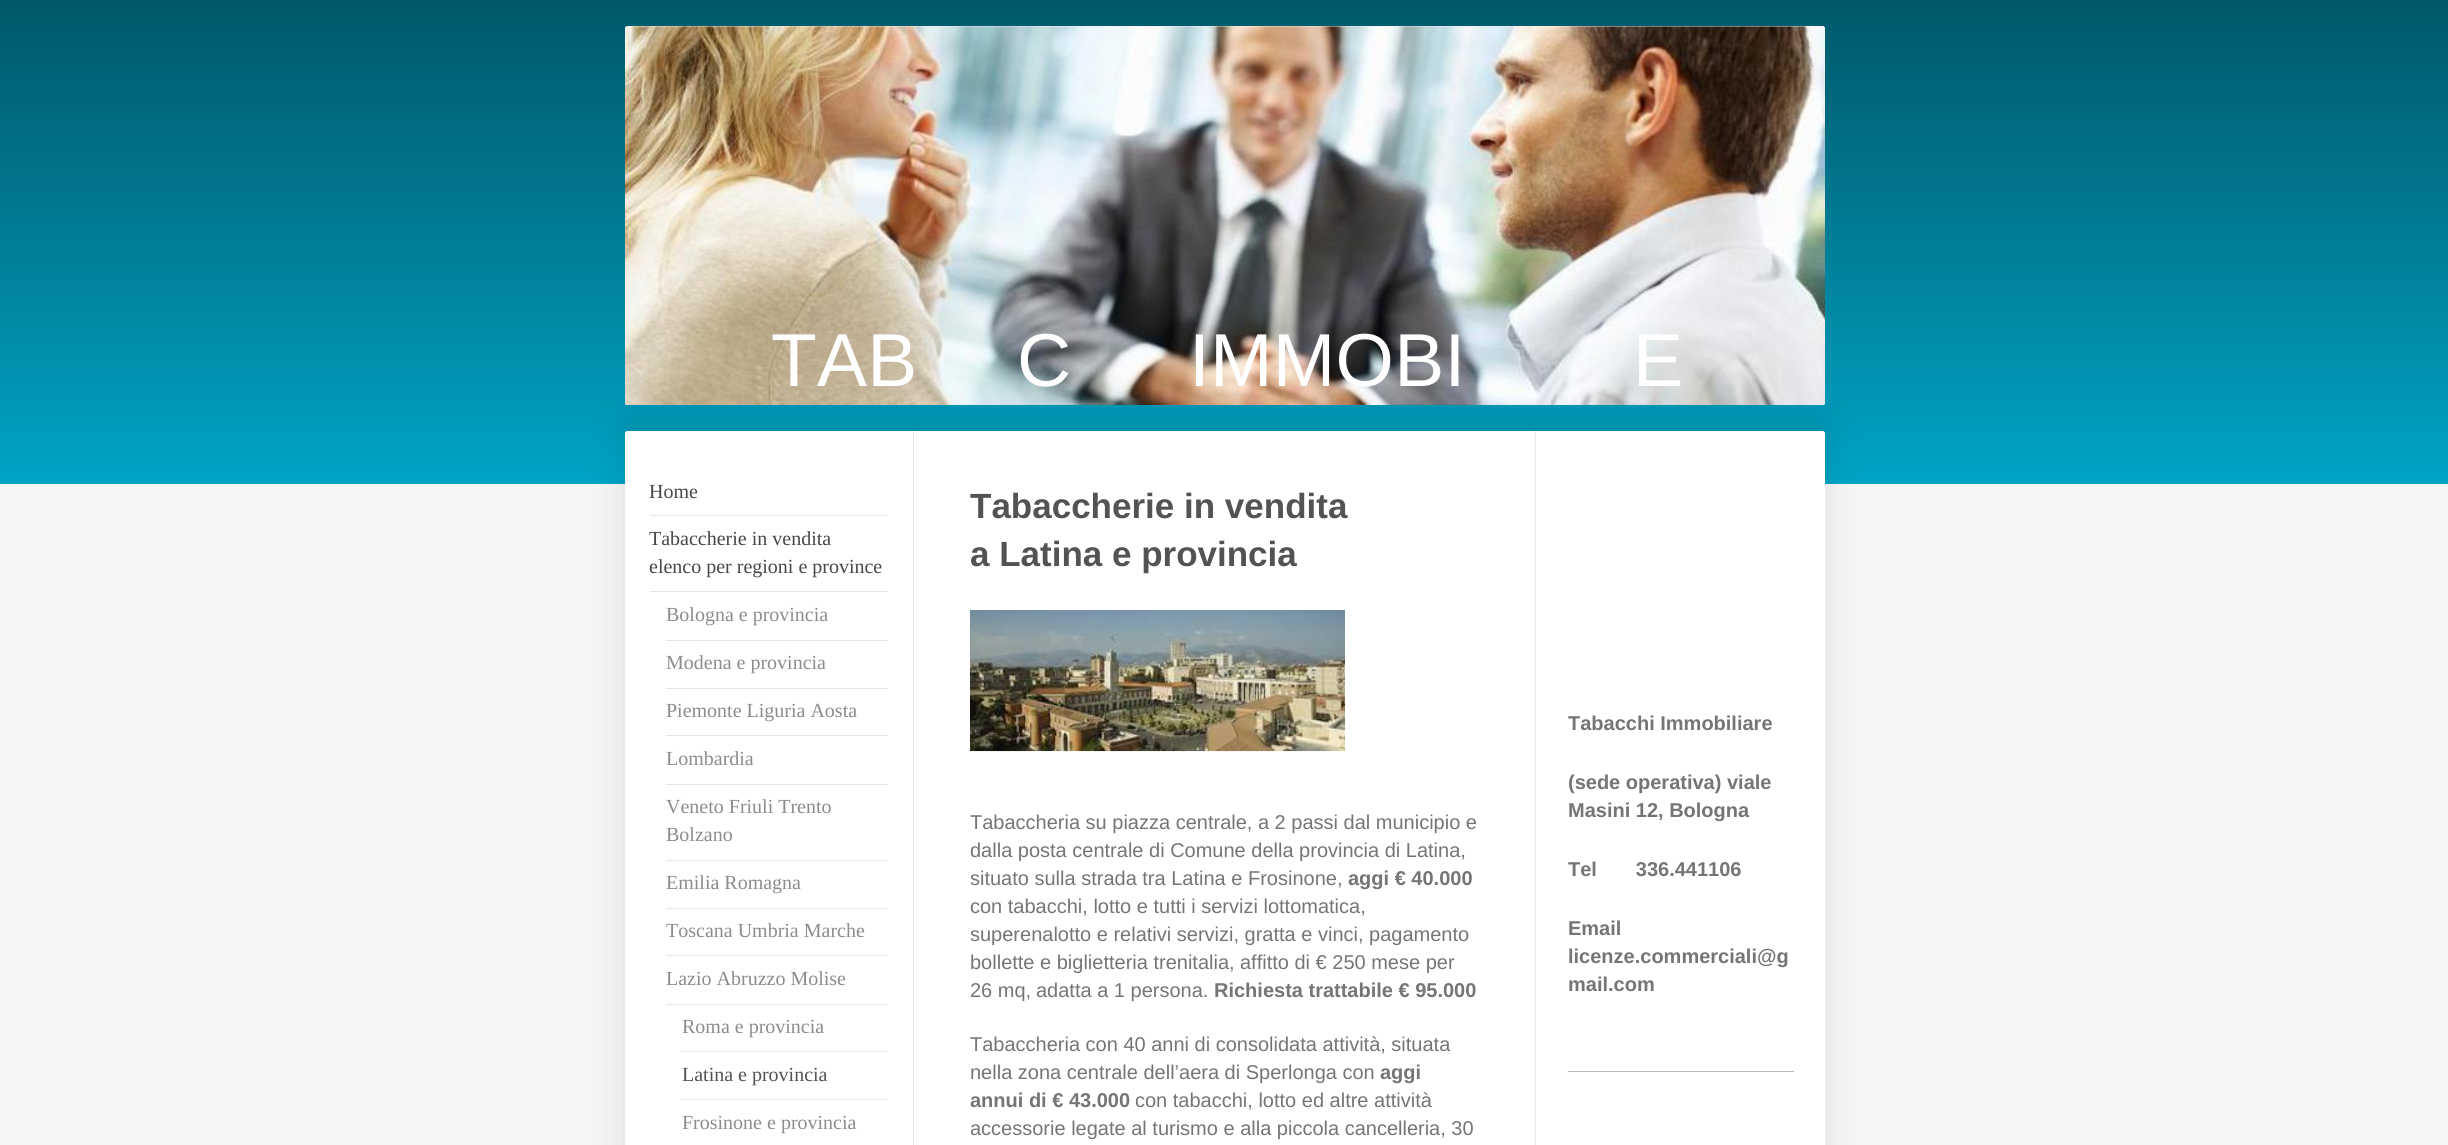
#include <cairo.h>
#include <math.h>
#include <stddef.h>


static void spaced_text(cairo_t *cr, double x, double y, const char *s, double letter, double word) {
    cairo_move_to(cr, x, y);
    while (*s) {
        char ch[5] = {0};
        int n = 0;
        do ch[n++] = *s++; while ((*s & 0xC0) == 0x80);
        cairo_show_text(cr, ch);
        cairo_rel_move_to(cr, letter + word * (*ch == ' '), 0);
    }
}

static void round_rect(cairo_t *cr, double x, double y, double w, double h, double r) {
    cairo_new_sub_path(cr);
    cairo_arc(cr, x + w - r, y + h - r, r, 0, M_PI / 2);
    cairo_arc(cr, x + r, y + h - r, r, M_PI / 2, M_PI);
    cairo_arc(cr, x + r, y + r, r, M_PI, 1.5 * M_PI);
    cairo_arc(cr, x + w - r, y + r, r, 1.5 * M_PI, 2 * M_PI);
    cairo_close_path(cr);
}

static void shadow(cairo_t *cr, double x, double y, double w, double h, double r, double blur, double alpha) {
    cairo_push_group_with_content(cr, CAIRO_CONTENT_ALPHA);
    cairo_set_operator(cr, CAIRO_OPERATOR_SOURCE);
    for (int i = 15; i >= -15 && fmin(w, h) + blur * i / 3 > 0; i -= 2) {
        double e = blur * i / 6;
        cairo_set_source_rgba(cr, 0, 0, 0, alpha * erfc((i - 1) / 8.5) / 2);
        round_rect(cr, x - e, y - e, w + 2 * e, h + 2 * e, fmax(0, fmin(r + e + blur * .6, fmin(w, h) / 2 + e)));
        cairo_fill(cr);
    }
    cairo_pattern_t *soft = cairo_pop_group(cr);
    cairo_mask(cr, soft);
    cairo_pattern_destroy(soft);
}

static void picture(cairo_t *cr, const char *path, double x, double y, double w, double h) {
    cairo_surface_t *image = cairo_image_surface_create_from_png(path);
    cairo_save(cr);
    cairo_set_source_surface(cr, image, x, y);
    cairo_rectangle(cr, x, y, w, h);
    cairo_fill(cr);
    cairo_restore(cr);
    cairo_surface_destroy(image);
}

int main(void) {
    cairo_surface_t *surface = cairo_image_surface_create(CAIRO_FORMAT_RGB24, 2448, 1145);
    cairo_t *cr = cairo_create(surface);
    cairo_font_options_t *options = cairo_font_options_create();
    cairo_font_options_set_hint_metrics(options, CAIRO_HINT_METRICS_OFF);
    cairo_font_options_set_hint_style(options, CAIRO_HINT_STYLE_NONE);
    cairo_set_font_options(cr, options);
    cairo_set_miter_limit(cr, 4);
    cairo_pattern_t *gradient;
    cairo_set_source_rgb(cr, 0.961, 0.961, 0.961);
    cairo_paint(cr);
    gradient = cairo_pattern_create_linear(0, 484, 0, 0);
    cairo_pattern_add_color_stop_rgba(gradient, 0, 0, 0.643, 0.773, 1);
    cairo_pattern_add_color_stop_rgba(gradient, 1, 0, 0.345, 0.412, 1);
    cairo_set_source(cr, gradient);
    cairo_pattern_destroy(gradient);
    cairo_rectangle(cr, 0, 0, 2448, 484);
    cairo_fill(cr);
    picture(cr, "img1.png", 625, 26, 1200, 379);
    cairo_set_source_rgb(cr, 0, 0, 0);
    shadow(cr, 625, 419, 1200, 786, 2.5, 19, 0.1);
    cairo_set_source_rgb(cr, 0.933, 0.933, 0.933);
    round_rect(cr, 625, 26, 1200, 379, 2.5);
    cairo_fill(cr);
    picture(cr, "img2.png", 625, 26, 1200, 379);
    cairo_select_font_face(cr, "Liberation Sans", CAIRO_FONT_SLANT_NORMAL, CAIRO_FONT_WEIGHT_NORMAL);
    cairo_set_font_size(cr, 75);
    cairo_set_source_rgb(cr, 1, 1, 1);
    spaced_text(cr, 771, 386, "TAB", 0.25, 0);
    spaced_text(cr, 1017, 386, "C", 0.25, 0);
    spaced_text(cr, 1189, 386, "IMMOBI", 0.25, 0);
    spaced_text(cr, 1633, 386, "E", 0.25, 0);
    round_rect(cr, 625, 431, 1200, 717, 2.5);
    cairo_fill(cr);
    cairo_set_source_rgb(cr, 0.902, 0.902, 0.902);
    cairo_rectangle(cr, 650, 515, 238, 1);
    cairo_fill(cr);
    cairo_select_font_face(cr, "Liberation Serif", CAIRO_FONT_SLANT_NORMAL, CAIRO_FONT_WEIGHT_NORMAL);
    cairo_set_font_size(cr, 20);
    cairo_set_source_rgb(cr, 0.278, 0.278, 0.278);
    cairo_move_to(cr, 649, 498);
    cairo_show_text(cr, "Home");
    cairo_set_source_rgb(cr, 0.902, 0.902, 0.902);
    cairo_rectangle(cr, 650, 591, 238, 1);
    cairo_fill(cr);
    cairo_set_source_rgb(cr, 0.278, 0.278, 0.278);
    cairo_move_to(cr, 649, 545);
    cairo_show_text(cr, "Tabaccherie in vendita");
    cairo_move_to(cr, 649, 573);
    cairo_show_text(cr, "elenco per regioni e province");
    cairo_set_source_rgb(cr, 0.902, 0.902, 0.902);
    cairo_rectangle(cr, 666, 640, 222, 1);
    cairo_fill(cr);
    cairo_set_source_rgb(cr, 0.549, 0.549, 0.549);
    cairo_move_to(cr, 666, 621);
    cairo_show_text(cr, "Bologna e provincia");
    cairo_set_source_rgb(cr, 0.902, 0.902, 0.902);
    cairo_rectangle(cr, 666, 688, 222, 1);
    cairo_fill(cr);
    cairo_set_source_rgb(cr, 0.549, 0.549, 0.549);
    cairo_move_to(cr, 666, 669);
    cairo_show_text(cr, "Modena e provincia");
    cairo_set_source_rgb(cr, 0.902, 0.902, 0.902);
    cairo_rectangle(cr, 666, 735, 222, 1);
    cairo_fill(cr);
    cairo_set_source_rgb(cr, 0.549, 0.549, 0.549);
    cairo_move_to(cr, 666, 717);
    cairo_show_text(cr, "Piemonte Liguria Aosta");
    cairo_set_source_rgb(cr, 0.902, 0.902, 0.902);
    cairo_rectangle(cr, 666, 784, 222, 1);
    cairo_fill(cr);
    cairo_set_source_rgb(cr, 0.549, 0.549, 0.549);
    cairo_move_to(cr, 666, 765);
    cairo_show_text(cr, "Lombardia");
    cairo_set_source_rgb(cr, 0.902, 0.902, 0.902);
    cairo_rectangle(cr, 666, 860, 222, 1);
    cairo_fill(cr);
    cairo_set_source_rgb(cr, 0.549, 0.549, 0.549);
    cairo_move_to(cr, 666, 813);
    cairo_show_text(cr, "Veneto Friuli Trento");
    cairo_move_to(cr, 666, 841);
    cairo_show_text(cr, "Bolzano");
    cairo_set_source_rgb(cr, 0.902, 0.902, 0.902);
    cairo_rectangle(cr, 666, 908, 222, 1);
    cairo_fill(cr);
    cairo_set_source_rgb(cr, 0.549, 0.549, 0.549);
    cairo_move_to(cr, 666, 889);
    cairo_show_text(cr, "Emilia Romagna");
    cairo_set_source_rgb(cr, 0.902, 0.902, 0.902);
    cairo_rectangle(cr, 666, 955, 222, 1);
    cairo_fill(cr);
    cairo_set_source_rgb(cr, 0.549, 0.549, 0.549);
    cairo_move_to(cr, 666, 937);
    cairo_show_text(cr, "Toscana Umbria Marche");
    cairo_set_source_rgb(cr, 0.902, 0.902, 0.902);
    cairo_rectangle(cr, 666, 1004, 222, 1);
    cairo_fill(cr);
    cairo_set_source_rgb(cr, 0.549, 0.549, 0.549);
    cairo_move_to(cr, 666, 985);
    cairo_show_text(cr, "Lazio Abruzzo Molise");
    cairo_set_source_rgb(cr, 0.902, 0.902, 0.902);
    cairo_rectangle(cr, 681, 1051, 207, 1);
    cairo_fill(cr);
    cairo_set_source_rgb(cr, 0.549, 0.549, 0.549);
    cairo_move_to(cr, 682, 1033);
    cairo_show_text(cr, "Roma e provincia");
    cairo_set_source_rgb(cr, 0.902, 0.902, 0.902);
    cairo_rectangle(cr, 681, 1099, 207, 1);
    cairo_fill(cr);
    cairo_set_source_rgb(cr, 0.325, 0.325, 0.325);
    cairo_move_to(cr, 682, 1081);
    cairo_show_text(cr, "Latina e provincia");
    cairo_set_source_rgb(cr, 0.549, 0.549, 0.549);
    cairo_move_to(cr, 682, 1129);
    cairo_show_text(cr, "Frosinone e provincia");
    cairo_set_source_rgb(cr, 0.902, 0.902, 0.902);
    cairo_rectangle(cr, 1535, 431, 1, 714);
    cairo_fill(cr);
    cairo_rectangle(cr, 913, 431, 1, 714);
    cairo_fill(cr);
    cairo_select_font_face(cr, "Liberation Sans", CAIRO_FONT_SLANT_NORMAL, CAIRO_FONT_WEIGHT_BOLD);
    cairo_set_font_size(cr, 35);
    cairo_set_source_rgb(cr, 0.325, 0.325, 0.325);
    cairo_move_to(cr, 970, 518);
    cairo_show_text(cr, "Tabaccherie in vendita");
    cairo_move_to(cr, 970, 566);
    cairo_show_text(cr, "a Latina e provincia");
    picture(cr, "img3.png", 970, 610, 375, 142);
    cairo_select_font_face(cr, "Liberation Sans", CAIRO_FONT_SLANT_NORMAL, CAIRO_FONT_WEIGHT_NORMAL);
    cairo_set_font_size(cr, 20);
    cairo_set_source_rgb(cr, 0.459, 0.459, 0.459);
    cairo_move_to(cr, 970, 829);
    cairo_show_text(cr, "Tabaccheria su piazza centrale, a 2 passi dal municipio e");
    cairo_move_to(cr, 970, 857);
    cairo_show_text(cr, "dalla posta centrale di Comune della provincia di Latina,");
    cairo_move_to(cr, 970, 885);
    cairo_show_text(cr, "situato sulla strada tra Latina e Frosinone,");
    cairo_select_font_face(cr, "Liberation Sans", CAIRO_FONT_SLANT_NORMAL, CAIRO_FONT_WEIGHT_BOLD);
    cairo_move_to(cr, 1348, 885);
    cairo_show_text(cr, "aggi € 40.000");
    cairo_select_font_face(cr, "Liberation Sans", CAIRO_FONT_SLANT_NORMAL, CAIRO_FONT_WEIGHT_NORMAL);
    cairo_move_to(cr, 970, 913);
    cairo_show_text(cr, "con tabacchi, lotto e tutti i servizi lottomatica,");
    cairo_move_to(cr, 970, 941);
    cairo_show_text(cr, "superenalotto e relativi servizi, gratta e vinci, pagamento");
    cairo_move_to(cr, 970, 969);
    cairo_show_text(cr, "bollette e biglietteria trenitalia,");
    cairo_move_to(cr, 1240, 969);
    cairo_show_text(cr, "affitto di € 250 mese per");
    cairo_move_to(cr, 970, 997);
    cairo_show_text(cr, "26 mq,");
    cairo_move_to(cr, 1036, 997);
    cairo_show_text(cr, "adatta a 1 persona.");
    cairo_select_font_face(cr, "Liberation Sans", CAIRO_FONT_SLANT_NORMAL, CAIRO_FONT_WEIGHT_BOLD);
    cairo_move_to(cr, 1214, 997);
    cairo_show_text(cr, "Richiesta trattabile € 95.000");
    cairo_select_font_face(cr, "Liberation Sans", CAIRO_FONT_SLANT_NORMAL, CAIRO_FONT_WEIGHT_NORMAL);
    cairo_move_to(cr, 970, 1051);
    cairo_show_text(cr, "Tabaccheria con 40 anni di consolidata attività, situata");
    cairo_move_to(cr, 970, 1079);
    cairo_show_text(cr, "nella zona centrale dell’aera di Sperlonga con");
    cairo_select_font_face(cr, "Liberation Sans", CAIRO_FONT_SLANT_NORMAL, CAIRO_FONT_WEIGHT_BOLD);
    cairo_move_to(cr, 1380, 1079);
    cairo_show_text(cr, "aggi");
    cairo_move_to(cr, 970, 1107);
    cairo_show_text(cr, "annui di € 43.000");
    cairo_select_font_face(cr, "Liberation Sans", CAIRO_FONT_SLANT_NORMAL, CAIRO_FONT_WEIGHT_NORMAL);
    cairo_move_to(cr, 1135, 1107);
    cairo_show_text(cr, "con tabacchi, lotto ed altre attività");
    cairo_move_to(cr, 970, 1135);
    cairo_show_text(cr, "accessorie legate al turismo e alla piccola cancelleria, 30");
    cairo_select_font_face(cr, "Liberation Sans", CAIRO_FONT_SLANT_NORMAL, CAIRO_FONT_WEIGHT_BOLD);
    cairo_move_to(cr, 1568, 730);
    cairo_show_text(cr, "Tabacchi Immobiliare");
    cairo_move_to(cr, 1568, 789);
    cairo_show_text(cr, "(sede operativa) viale");
    cairo_move_to(cr, 1568, 817);
    cairo_show_text(cr, "Masini 12, Bologna");
    cairo_move_to(cr, 1568, 876);
    cairo_show_text(cr, "Tel       336.441106");
    cairo_move_to(cr, 1568, 935);
    cairo_show_text(cr, "Email");
    cairo_move_to(cr, 1568, 963);
    cairo_show_text(cr, "licenze.commerciali@g");
    cairo_move_to(cr, 1568, 991);
    cairo_show_text(cr, "mail.com");
    cairo_set_source_rgb(cr, 0.729, 0.729, 0.729);
    cairo_rectangle(cr, 1568, 1071, 226, 1);
    cairo_fill(cr);
    cairo_surface_write_to_png(surface, "page.png");
    cairo_font_options_destroy(options);
    cairo_destroy(cr);
    cairo_surface_destroy(surface);
    return 0;
}
